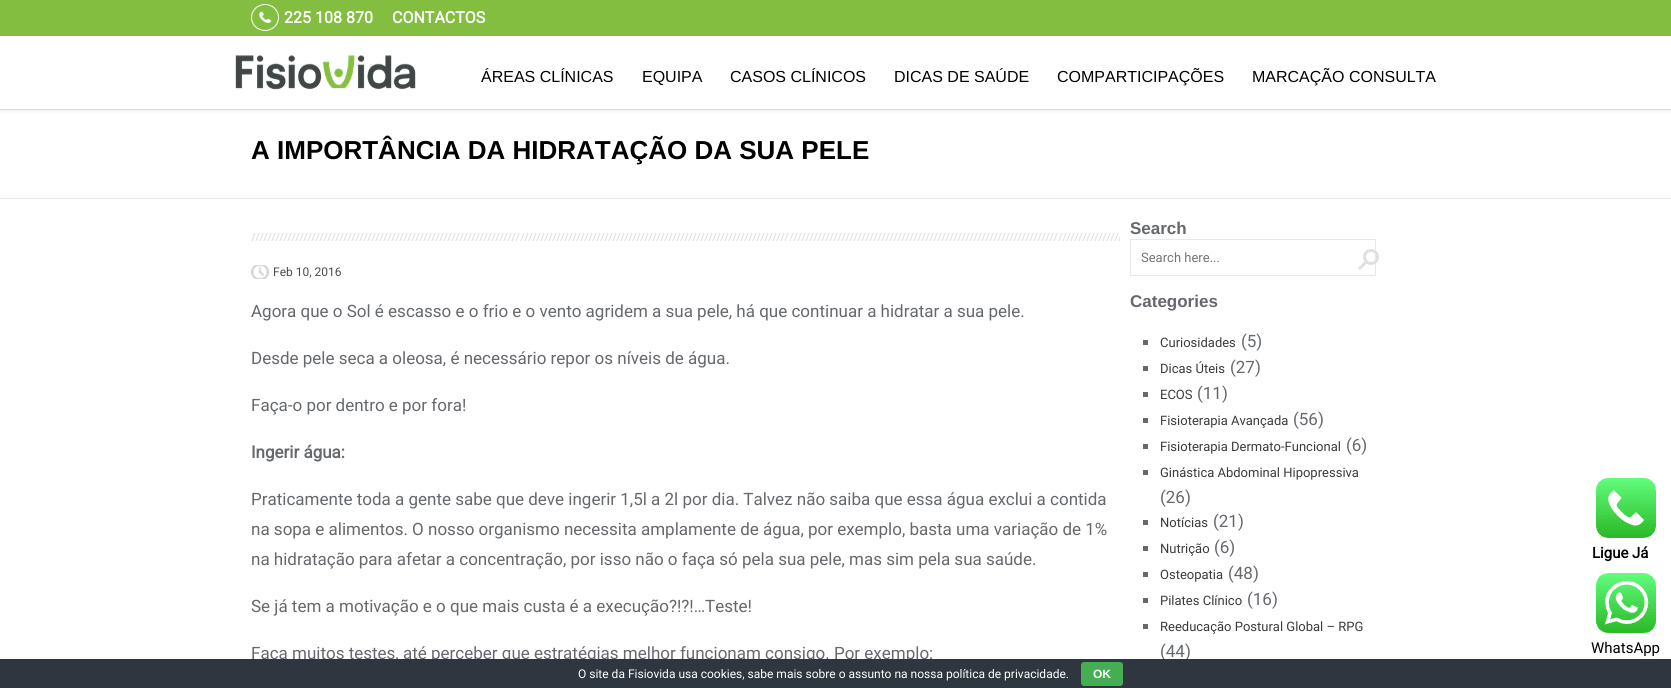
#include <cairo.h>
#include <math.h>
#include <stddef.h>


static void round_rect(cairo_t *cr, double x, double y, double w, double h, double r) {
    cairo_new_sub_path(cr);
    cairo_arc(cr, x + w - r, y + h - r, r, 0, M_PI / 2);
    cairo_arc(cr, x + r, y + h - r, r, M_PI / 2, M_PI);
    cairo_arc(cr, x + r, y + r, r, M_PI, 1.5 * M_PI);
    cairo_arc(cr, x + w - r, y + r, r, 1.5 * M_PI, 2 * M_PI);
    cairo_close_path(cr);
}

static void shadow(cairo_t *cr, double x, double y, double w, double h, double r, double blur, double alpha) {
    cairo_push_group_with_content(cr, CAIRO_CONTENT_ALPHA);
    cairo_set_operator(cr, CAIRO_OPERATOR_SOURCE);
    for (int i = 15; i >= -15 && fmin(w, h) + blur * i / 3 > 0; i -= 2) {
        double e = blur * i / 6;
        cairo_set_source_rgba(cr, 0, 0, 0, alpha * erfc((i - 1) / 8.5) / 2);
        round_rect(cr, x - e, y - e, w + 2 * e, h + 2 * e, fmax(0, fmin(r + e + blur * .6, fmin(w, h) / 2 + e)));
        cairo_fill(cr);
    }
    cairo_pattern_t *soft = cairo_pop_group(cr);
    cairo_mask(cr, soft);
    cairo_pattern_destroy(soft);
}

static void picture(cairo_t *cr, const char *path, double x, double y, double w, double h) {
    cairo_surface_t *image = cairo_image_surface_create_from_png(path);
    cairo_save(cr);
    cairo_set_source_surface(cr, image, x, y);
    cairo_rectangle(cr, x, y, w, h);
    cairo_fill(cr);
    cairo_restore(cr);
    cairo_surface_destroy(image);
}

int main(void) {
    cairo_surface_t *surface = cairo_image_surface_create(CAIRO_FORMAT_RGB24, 1671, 688);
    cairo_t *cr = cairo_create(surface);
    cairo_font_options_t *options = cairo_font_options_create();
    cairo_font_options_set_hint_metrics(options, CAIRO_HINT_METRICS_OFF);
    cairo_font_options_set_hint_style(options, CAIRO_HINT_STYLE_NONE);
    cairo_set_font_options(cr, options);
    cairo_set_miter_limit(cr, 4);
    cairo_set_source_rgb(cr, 1, 1, 1);
    cairo_paint(cr);
    cairo_set_source_rgb(cr, 0.863, 0.863, 0.863);
    shadow(cr, 0, 0, 1671, 110, 0, 2, 1);
    cairo_set_source_rgb(cr, 1, 1, 1);
    cairo_rectangle(cr, 0, 36, 1671, 73);
    cairo_fill(cr);
    cairo_set_source_rgb(cr, 0.863, 0.863, 0.863);
    cairo_rectangle(cr, 0, 109, 1671, 1);
    cairo_fill(cr);
    cairo_set_source_rgb(cr, 0.518, 0.745, 0.255);
    cairo_rectangle(cr, 0, 0, 1671, 36);
    cairo_fill(cr);
    picture(cr, "img1.png", 251, 4, 28, 27);
    cairo_select_font_face(cr, "Roboto", CAIRO_FONT_SLANT_NORMAL, CAIRO_FONT_WEIGHT_BOLD);
    cairo_set_font_size(cr, 16);
    cairo_set_source_rgb(cr, 1, 1, 1);
    cairo_move_to(cr, 284, 23);
    cairo_show_text(cr, "225 108 870");
    cairo_move_to(cr, 392, 23);
    cairo_show_text(cr, "CONTACTOS");
    picture(cr, "img2.png", 235, 55, 181, 35);
    cairo_select_font_face(cr, "Liberation Sans", CAIRO_FONT_SLANT_NORMAL, CAIRO_FONT_WEIGHT_NORMAL);
    cairo_set_source_rgb(cr, 0, 0, 0);
    cairo_move_to(cr, 481, 82);
    cairo_show_text(cr, "ÁREAS CLÍNICAS");
    cairo_move_to(cr, 642, 82);
    cairo_show_text(cr, "EQUIPA");
    cairo_move_to(cr, 730, 82);
    cairo_show_text(cr, "CASOS CLÍNICOS");
    cairo_move_to(cr, 894, 82);
    cairo_show_text(cr, "DICAS DE SAÚDE");
    cairo_move_to(cr, 1057, 82);
    cairo_show_text(cr, "COMPARTICIPAÇÕES");
    cairo_move_to(cr, 1252, 82);
    cairo_show_text(cr, "MARCAÇÃO CONSULTA");
    cairo_set_source_rgb(cr, 0.914, 0.914, 0.914);
    cairo_rectangle(cr, 0, 198, 1671, 1);
    cairo_fill(cr);
    cairo_select_font_face(cr, "Liberation Sans", CAIRO_FONT_SLANT_NORMAL, CAIRO_FONT_WEIGHT_BOLD);
    cairo_set_font_size(cr, 26);
    cairo_set_source_rgb(cr, 0, 0, 0);
    cairo_move_to(cr, 251, 159);
    cairo_show_text(cr, "A IMPORTÂNCIA DA HIDRATAÇÃO DA SUA PELE");
    picture(cr, "img3.png", 251, 233, 869, 8);
    picture(cr, "img4.png", 251, 265, 18, 14);
    cairo_select_font_face(cr, "Roboto", CAIRO_FONT_SLANT_NORMAL, CAIRO_FONT_WEIGHT_NORMAL);
    cairo_set_font_size(cr, 12);
    cairo_set_source_rgb(cr, 0.298, 0.298, 0.298);
    cairo_move_to(cr, 273, 276);
    cairo_show_text(cr, "Feb 10, 2016");
    cairo_set_font_size(cr, 17);
    cairo_set_source_rgb(cr, 0.396, 0.408, 0.427);
    cairo_move_to(cr, 251, 317);
    cairo_show_text(cr, "Agora que o Sol é escasso e o frio e o vento agridem a sua pele, há que continuar a hidratar a sua pele.");
    cairo_move_to(cr, 251, 364);
    cairo_show_text(cr, "Desde pele seca a oleosa, é necessário repor os níveis de água.");
    cairo_move_to(cr, 251, 411);
    cairo_show_text(cr, "Faça-o por dentro e por fora!");
    cairo_select_font_face(cr, "Roboto", CAIRO_FONT_SLANT_NORMAL, CAIRO_FONT_WEIGHT_BOLD);
    cairo_move_to(cr, 251, 458);
    cairo_show_text(cr, "Ingerir água:");
    cairo_select_font_face(cr, "Roboto", CAIRO_FONT_SLANT_NORMAL, CAIRO_FONT_WEIGHT_NORMAL);
    cairo_move_to(cr, 251, 505);
    cairo_show_text(cr, "Praticamente toda a gente sabe que deve ingerir 1,5l a 2l por dia. Talvez não saiba que essa água exclui a contida");
    cairo_move_to(cr, 251, 535);
    cairo_show_text(cr, "na sopa e alimentos. O nosso organismo necessita amplamente de água, por exemplo, basta uma variação de 1%");
    cairo_move_to(cr, 251, 565);
    cairo_show_text(cr, "na hidratação para afetar a concentração, por isso não o faça só pela sua pele, mas sim pela sua saúde.");
    cairo_move_to(cr, 251, 612);
    cairo_show_text(cr, "Se já tem a motivação e o que mais custa é a execução?!?!…Teste!");
    cairo_move_to(cr, 251, 659);
    cairo_show_text(cr, "Faça muitos testes, até perceber que estratégias melhor funcionam consigo. Por exemplo:");
    cairo_select_font_face(cr, "Liberation Sans", CAIRO_FONT_SLANT_NORMAL, CAIRO_FONT_WEIGHT_BOLD);
    cairo_move_to(cr, 1130, 234);
    cairo_show_text(cr, "Search");
    cairo_rectangle(cr, 1130.5, 239.5, 245, 36);
    cairo_set_source_rgb(cr, 0.91, 0.91, 0.91);
    cairo_set_line_width(cr, 1);
    cairo_stroke(cr);
    cairo_select_font_face(cr, "Roboto", CAIRO_FONT_SLANT_NORMAL, CAIRO_FONT_WEIGHT_NORMAL);
    cairo_set_font_size(cr, 13);
    cairo_set_source_rgb(cr, 0.459, 0.459, 0.459);
    cairo_move_to(cr, 1141, 262);
    cairo_show_text(cr, "Search here...");
    picture(cr, "img5.png", 1358, 249, 21, 21);
    cairo_select_font_face(cr, "Liberation Sans", CAIRO_FONT_SLANT_NORMAL, CAIRO_FONT_WEIGHT_BOLD);
    cairo_set_font_size(cr, 17);
    cairo_set_source_rgb(cr, 0.396, 0.408, 0.427);
    cairo_move_to(cr, 1130, 307);
    cairo_show_text(cr, "Categories");
    cairo_rectangle(cr, 1143, 340, 5, 5);
    cairo_fill(cr);
    cairo_select_font_face(cr, "Roboto", CAIRO_FONT_SLANT_NORMAL, CAIRO_FONT_WEIGHT_NORMAL);
    cairo_set_font_size(cr, 13);
    cairo_set_source_rgb(cr, 0.231, 0.231, 0.231);
    cairo_move_to(cr, 1160, 347);
    cairo_show_text(cr, "Curiosidades");
    cairo_set_font_size(cr, 17);
    cairo_set_source_rgb(cr, 0.396, 0.408, 0.427);
    cairo_move_to(cr, 1241, 347);
    cairo_show_text(cr, "(5)");
    cairo_rectangle(cr, 1143, 366, 5, 5);
    cairo_fill(cr);
    cairo_set_font_size(cr, 13);
    cairo_set_source_rgb(cr, 0.231, 0.231, 0.231);
    cairo_move_to(cr, 1160, 373);
    cairo_show_text(cr, "Dicas Úteis");
    cairo_set_font_size(cr, 17);
    cairo_set_source_rgb(cr, 0.396, 0.408, 0.427);
    cairo_move_to(cr, 1230, 373);
    cairo_show_text(cr, "(27)");
    cairo_rectangle(cr, 1143, 392, 5, 5);
    cairo_fill(cr);
    cairo_set_font_size(cr, 13);
    cairo_set_source_rgb(cr, 0.231, 0.231, 0.231);
    cairo_move_to(cr, 1160, 399);
    cairo_show_text(cr, "ECOS");
    cairo_set_font_size(cr, 17);
    cairo_set_source_rgb(cr, 0.396, 0.408, 0.427);
    cairo_move_to(cr, 1197, 399);
    cairo_show_text(cr, "(11)");
    cairo_rectangle(cr, 1143, 418, 5, 5);
    cairo_fill(cr);
    cairo_set_font_size(cr, 13);
    cairo_set_source_rgb(cr, 0.231, 0.231, 0.231);
    cairo_move_to(cr, 1160, 425);
    cairo_show_text(cr, "Fisioterapia Avançada");
    cairo_set_font_size(cr, 17);
    cairo_set_source_rgb(cr, 0.396, 0.408, 0.427);
    cairo_move_to(cr, 1293, 425);
    cairo_show_text(cr, "(56)");
    cairo_rectangle(cr, 1143, 444, 5, 5);
    cairo_fill(cr);
    cairo_set_font_size(cr, 13);
    cairo_set_source_rgb(cr, 0.231, 0.231, 0.231);
    cairo_move_to(cr, 1160, 451);
    cairo_show_text(cr, "Fisioterapia Dermato-Funcional");
    cairo_set_font_size(cr, 17);
    cairo_set_source_rgb(cr, 0.396, 0.408, 0.427);
    cairo_move_to(cr, 1346, 451);
    cairo_show_text(cr, "(6)");
    cairo_rectangle(cr, 1143, 470, 5, 5);
    cairo_fill(cr);
    cairo_set_font_size(cr, 13);
    cairo_set_source_rgb(cr, 0.231, 0.231, 0.231);
    cairo_move_to(cr, 1160, 477);
    cairo_show_text(cr, "Ginástica Abdominal Hipopressiva");
    cairo_set_font_size(cr, 17);
    cairo_set_source_rgb(cr, 0.396, 0.408, 0.427);
    cairo_move_to(cr, 1160, 503);
    cairo_show_text(cr, "(26)");
    cairo_rectangle(cr, 1143, 520, 5, 5);
    cairo_fill(cr);
    cairo_set_font_size(cr, 13);
    cairo_set_source_rgb(cr, 0.231, 0.231, 0.231);
    cairo_move_to(cr, 1160, 527);
    cairo_show_text(cr, "Notícias");
    cairo_set_font_size(cr, 17);
    cairo_set_source_rgb(cr, 0.396, 0.408, 0.427);
    cairo_move_to(cr, 1213, 527);
    cairo_show_text(cr, "(21)");
    cairo_rectangle(cr, 1143, 546, 5, 5);
    cairo_fill(cr);
    cairo_set_font_size(cr, 13);
    cairo_set_source_rgb(cr, 0.231, 0.231, 0.231);
    cairo_move_to(cr, 1160, 553);
    cairo_show_text(cr, "Nutrição");
    cairo_set_font_size(cr, 17);
    cairo_set_source_rgb(cr, 0.396, 0.408, 0.427);
    cairo_move_to(cr, 1214, 553);
    cairo_show_text(cr, "(6)");
    cairo_rectangle(cr, 1143, 572, 5, 5);
    cairo_fill(cr);
    cairo_set_font_size(cr, 13);
    cairo_set_source_rgb(cr, 0.231, 0.231, 0.231);
    cairo_move_to(cr, 1160, 579);
    cairo_show_text(cr, "Osteopatia");
    cairo_set_font_size(cr, 17);
    cairo_set_source_rgb(cr, 0.396, 0.408, 0.427);
    cairo_move_to(cr, 1228, 579);
    cairo_show_text(cr, "(48)");
    cairo_rectangle(cr, 1143, 598, 5, 5);
    cairo_fill(cr);
    cairo_set_font_size(cr, 13);
    cairo_set_source_rgb(cr, 0.231, 0.231, 0.231);
    cairo_move_to(cr, 1160, 605);
    cairo_show_text(cr, "Pilates Clínico");
    cairo_set_font_size(cr, 17);
    cairo_set_source_rgb(cr, 0.396, 0.408, 0.427);
    cairo_move_to(cr, 1247, 605);
    cairo_show_text(cr, "(16)");
    cairo_rectangle(cr, 1143, 624, 5, 5);
    cairo_fill(cr);
    cairo_set_font_size(cr, 13);
    cairo_set_source_rgb(cr, 0.231, 0.231, 0.231);
    cairo_move_to(cr, 1160, 631);
    cairo_show_text(cr, "Reeducação Postural Global – RPG");
    cairo_set_font_size(cr, 17);
    cairo_set_source_rgb(cr, 0.396, 0.408, 0.427);
    cairo_move_to(cr, 1160, 657);
    cairo_show_text(cr, "(44)");
    picture(cr, "img6.png", 1596, 478, 60, 60);
    cairo_select_font_face(cr, "Roboto", CAIRO_FONT_SLANT_NORMAL, CAIRO_FONT_WEIGHT_BOLD);
    cairo_set_font_size(cr, 15);
    cairo_set_source_rgb(cr, 0, 0, 0);
    cairo_move_to(cr, 1592, 558);
    cairo_show_text(cr, "Ligue Já");
    picture(cr, "img7.png", 1596, 573, 60, 60);
    cairo_select_font_face(cr, "Roboto", CAIRO_FONT_SLANT_NORMAL, CAIRO_FONT_WEIGHT_NORMAL);
    cairo_move_to(cr, 1591, 653);
    cairo_show_text(cr, "WhatsApp");
    cairo_set_source_rgb(cr, 0.18, 0.212, 0.247);
    cairo_rectangle(cr, 0, 659, 1671, 29);
    cairo_fill(cr);
    cairo_set_font_size(cr, 12);
    cairo_set_source_rgb(cr, 1, 1, 1);
    cairo_move_to(cr, 578, 678);
    cairo_show_text(cr, "O site da Fisiovida usa cookies, sabe mais sobre o assunto na nossa política de privacidade.");
    cairo_set_source_rgb(cr, 0.271, 0.682, 0.322);
    round_rect(cr, 1081, 662, 42, 24, 3);
    cairo_fill(cr);
    cairo_select_font_face(cr, "Liberation Sans", CAIRO_FONT_SLANT_NORMAL, CAIRO_FONT_WEIGHT_BOLD);
    cairo_set_source_rgb(cr, 1, 1, 1);
    cairo_move_to(cr, 1093, 678);
    cairo_show_text(cr, "OK");
    cairo_surface_write_to_png(surface, "page.png");
    cairo_font_options_destroy(options);
    cairo_destroy(cr);
    cairo_surface_destroy(surface);
    return 0;
}
